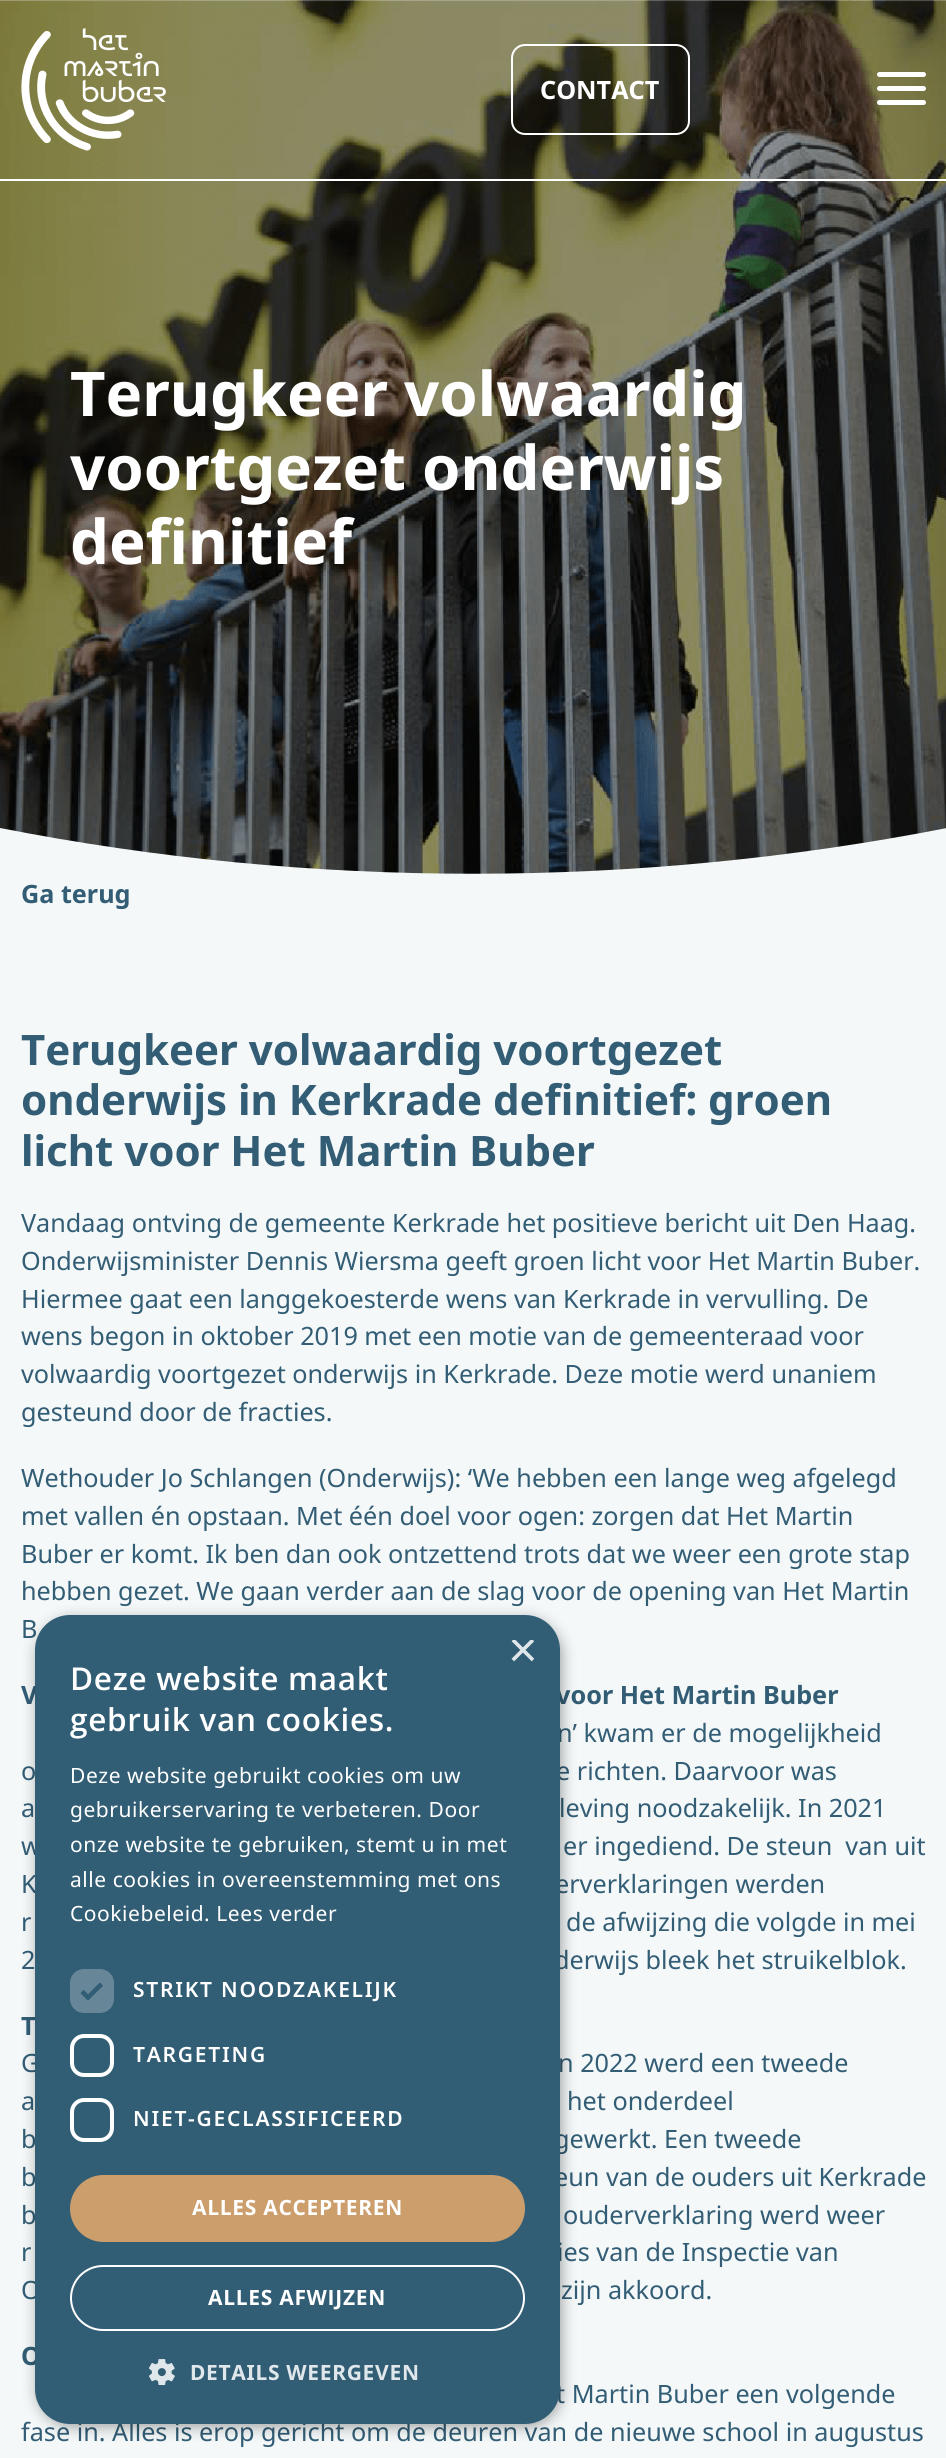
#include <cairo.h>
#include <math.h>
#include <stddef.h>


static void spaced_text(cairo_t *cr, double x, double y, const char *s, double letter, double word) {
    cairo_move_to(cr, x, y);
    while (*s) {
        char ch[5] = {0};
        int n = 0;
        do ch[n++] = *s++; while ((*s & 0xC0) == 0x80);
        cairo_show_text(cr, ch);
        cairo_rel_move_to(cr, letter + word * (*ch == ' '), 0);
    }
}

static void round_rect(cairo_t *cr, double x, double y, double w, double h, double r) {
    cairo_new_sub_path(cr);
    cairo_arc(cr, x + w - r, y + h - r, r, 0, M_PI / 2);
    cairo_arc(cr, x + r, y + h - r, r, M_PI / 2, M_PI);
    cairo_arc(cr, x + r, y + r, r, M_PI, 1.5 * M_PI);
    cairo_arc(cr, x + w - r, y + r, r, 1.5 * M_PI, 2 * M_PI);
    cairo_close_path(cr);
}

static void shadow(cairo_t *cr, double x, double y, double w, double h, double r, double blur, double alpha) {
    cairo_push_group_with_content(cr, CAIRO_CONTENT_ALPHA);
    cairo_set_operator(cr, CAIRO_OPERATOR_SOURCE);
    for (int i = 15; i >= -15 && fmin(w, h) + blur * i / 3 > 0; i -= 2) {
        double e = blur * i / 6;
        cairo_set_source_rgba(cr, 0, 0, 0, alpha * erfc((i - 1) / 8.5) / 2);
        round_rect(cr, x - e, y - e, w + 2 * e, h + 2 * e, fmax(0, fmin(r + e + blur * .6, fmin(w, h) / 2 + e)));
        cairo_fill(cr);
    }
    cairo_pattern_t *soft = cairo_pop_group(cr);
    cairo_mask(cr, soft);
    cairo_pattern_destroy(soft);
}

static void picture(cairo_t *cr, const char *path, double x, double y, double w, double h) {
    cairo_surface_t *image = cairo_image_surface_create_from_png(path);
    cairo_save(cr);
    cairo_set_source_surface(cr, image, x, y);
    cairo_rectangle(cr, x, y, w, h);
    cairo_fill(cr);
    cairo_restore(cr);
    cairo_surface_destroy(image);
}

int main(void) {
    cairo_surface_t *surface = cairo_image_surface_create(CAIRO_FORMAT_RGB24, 946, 2458);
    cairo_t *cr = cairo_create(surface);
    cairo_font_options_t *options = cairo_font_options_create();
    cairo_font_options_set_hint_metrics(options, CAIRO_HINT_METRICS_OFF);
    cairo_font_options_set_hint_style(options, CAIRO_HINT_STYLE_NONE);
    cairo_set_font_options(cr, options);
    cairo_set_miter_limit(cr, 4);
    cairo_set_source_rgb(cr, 0.957, 0.969, 0.973);
    cairo_paint(cr);
    picture(cr, "img2.png", 0, 0, 946, 874);
    cairo_set_source_rgb(cr, 1, 1, 1);
    cairo_rectangle(cr, 0, 179, 946, 2);
    cairo_fill(cr);
    picture(cr, "img1.png", 21, 28, 145, 123);
    round_rect(cr, 512, 45, 177, 89, 13);
    cairo_stroke(cr);
    cairo_select_font_face(cr, "Noto Sans", CAIRO_FONT_SLANT_NORMAL, CAIRO_FONT_WEIGHT_BOLD);
    cairo_set_font_size(cr, 25.2);
    cairo_move_to(cr, 540, 99);
    cairo_show_text(cr, "CONTACT");
    round_rect(cr, 877, 86, 49, 5, 2.5);
    cairo_fill(cr);
    round_rect(cr, 877, 72, 49, 5, 2.5);
    cairo_fill(cr);
    round_rect(cr, 877, 100, 49, 5, 2.5);
    cairo_fill(cr);
    cairo_set_font_size(cr, 61.6);
    cairo_move_to(cr, 70, 416);
    cairo_show_text(cr, "Terugkeer volwaardig");
    cairo_move_to(cr, 70, 490);
    cairo_show_text(cr, "voortgezet onderwijs");
    cairo_move_to(cr, 70, 564);
    cairo_show_text(cr, "definitief");
    cairo_set_source_rgb(cr, 0.957, 0.969, 0.973);
    cairo_new_path(cr);
    cairo_move_to(cr, 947, 876);
    cairo_line_to(cr, 0, 876);
    cairo_line_to(cr, 0, 828);
    cairo_curve_to(cr, 311, 889, 635, 889, 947, 828);
    cairo_close_path(cr);
    cairo_fill(cr);
    cairo_set_font_size(cr, 25.2);
    cairo_set_source_rgb(cr, 0.196, 0.365, 0.459);
    cairo_move_to(cr, 21, 903);
    cairo_show_text(cr, "Ga terug");
    cairo_set_font_size(cr, 42);
    cairo_move_to(cr, 21, 1065);
    cairo_show_text(cr, "Terugkeer volwaardig voortgezet");
    cairo_move_to(cr, 21, 1115);
    cairo_show_text(cr, "onderwijs in Kerkrade definitief: groen");
    cairo_move_to(cr, 21, 1166);
    cairo_show_text(cr, "licht voor Het Martin Buber");
    cairo_select_font_face(cr, "Noto Sans", CAIRO_FONT_SLANT_NORMAL, CAIRO_FONT_WEIGHT_NORMAL);
    cairo_set_font_size(cr, 25.2);
    cairo_move_to(cr, 21, 1232);
    cairo_show_text(cr, "Vandaag ontving de gemeente Kerkrade het positieve bericht uit Den Haag.");
    cairo_move_to(cr, 21, 1270);
    cairo_show_text(cr, "Onderwijsminister Dennis Wiersma geeft groen licht voor Het Martin Buber.");
    cairo_move_to(cr, 21, 1308);
    cairo_show_text(cr, "Hiermee gaat een langgekoesterde wens van Kerkrade in vervulling. De");
    cairo_move_to(cr, 21, 1345);
    cairo_show_text(cr, "wens begon in oktober 2019 met een motie van de gemeenteraad voor");
    cairo_move_to(cr, 21, 1383);
    cairo_show_text(cr, "volwaardig voortgezet onderwijs in Kerkrade. Deze motie werd unaniem");
    cairo_move_to(cr, 21, 1421);
    cairo_show_text(cr, "gesteund door de fracties.");
    cairo_move_to(cr, 21, 1487);
    cairo_show_text(cr, "Wethouder Jo Schlangen (Onderwijs): ‘We hebben een lange weg afgelegd");
    cairo_move_to(cr, 21, 1525);
    cairo_show_text(cr, "met vallen én opstaan. Met één doel voor ogen: zorgen dat Het Martin");
    cairo_move_to(cr, 21, 1563);
    cairo_show_text(cr, "Buber er komt. Ik ben dan ook ontzettend trots dat we weer een grote stap");
    cairo_move_to(cr, 21, 1600);
    cairo_show_text(cr, "hebben gezet. We gaan verder aan de slag voor de opening van Het Martin");
    cairo_move_to(cr, 21, 1638);
    cairo_show_text(cr, "B");
    cairo_select_font_face(cr, "Noto Sans", CAIRO_FONT_SLANT_NORMAL, CAIRO_FONT_WEIGHT_BOLD);
    cairo_move_to(cr, 21, 1704);
    cairo_show_text(cr, "V");
    cairo_move_to(cr, 556, 1704);
    cairo_show_text(cr, "voor Het Martin Buber");
    cairo_select_font_face(cr, "Noto Sans", CAIRO_FONT_SLANT_NORMAL, CAIRO_FONT_WEIGHT_NORMAL);
    cairo_move_to(cr, 557, 1742);
    cairo_show_text(cr, "n’ kwam er de mogelijkheid");
    cairo_move_to(cr, 21, 1780);
    cairo_show_text(cr, "o");
    cairo_move_to(cr, 556, 1780);
    cairo_show_text(cr, "e richten. Daarvoor was");
    cairo_move_to(cr, 21, 1817);
    cairo_show_text(cr, "a");
    cairo_move_to(cr, 559, 1817);
    cairo_show_text(cr, "leving noodzakelijk. In 2021");
    cairo_move_to(cr, 21, 1855);
    cairo_show_text(cr, "w");
    cairo_move_to(cr, 563, 1855);
    cairo_show_text(cr, "er ingediend. De steun  van uit");
    cairo_move_to(cr, 21, 1893);
    cairo_show_text(cr, "K");
    cairo_move_to(cr, 555, 1893);
    cairo_show_text(cr, "erverklaringen werden");
    cairo_move_to(cr, 21, 1931);
    cairo_show_text(cr, "r");
    cairo_move_to(cr, 566, 1931);
    cairo_show_text(cr, "de afwijzing die volgde in mei");
    cairo_move_to(cr, 21, 1969);
    cairo_show_text(cr, "2");
    cairo_move_to(cr, 554, 1969);
    cairo_show_text(cr, "derwijs bleek het struikelblok.");
    cairo_select_font_face(cr, "Noto Sans", CAIRO_FONT_SLANT_NORMAL, CAIRO_FONT_WEIGHT_BOLD);
    cairo_move_to(cr, 21, 2035);
    cairo_show_text(cr, "T");
    cairo_select_font_face(cr, "Noto Sans", CAIRO_FONT_SLANT_NORMAL, CAIRO_FONT_WEIGHT_NORMAL);
    cairo_move_to(cr, 21, 2072);
    cairo_show_text(cr, "G");
    cairo_move_to(cr, 558, 2072);
    cairo_show_text(cr, "n 2022 werd een tweede");
    cairo_move_to(cr, 21, 2110);
    cairo_show_text(cr, "a");
    cairo_move_to(cr, 567, 2110);
    cairo_show_text(cr, "het onderdeel");
    cairo_move_to(cr, 21, 2148);
    cairo_show_text(cr, "b");
    cairo_move_to(cr, 554, 2148);
    cairo_show_text(cr, "gewerkt. Een tweede");
    cairo_move_to(cr, 21, 2186);
    cairo_show_text(cr, "b");
    cairo_move_to(cr, 554, 2186);
    cairo_show_text(cr, "eun van de ouders uit Kerkrade");
    cairo_move_to(cr, 21, 2224);
    cairo_show_text(cr, "b");
    cairo_move_to(cr, 563, 2224);
    cairo_show_text(cr, "ouderverklaring werd weer");
    cairo_move_to(cr, 21, 2261);
    cairo_show_text(cr, "r");
    cairo_move_to(cr, 557, 2261);
    cairo_show_text(cr, "ies van de Inspectie van");
    cairo_move_to(cr, 21, 2299);
    cairo_show_text(cr, "O");
    cairo_move_to(cr, 561, 2299);
    cairo_show_text(cr, "zijn akkoord.");
    cairo_select_font_face(cr, "Noto Sans", CAIRO_FONT_SLANT_NORMAL, CAIRO_FONT_WEIGHT_BOLD);
    cairo_move_to(cr, 21, 2365);
    cairo_show_text(cr, "O");
    cairo_select_font_face(cr, "Noto Sans", CAIRO_FONT_SLANT_NORMAL, CAIRO_FONT_WEIGHT_NORMAL);
    cairo_move_to(cr, 556, 2403);
    cairo_show_text(cr, "t Martin Buber een volgende");
    cairo_move_to(cr, 21, 2441);
    cairo_show_text(cr, "fase in. Alles is erop gericht om de deuren van de nieuwe school in augustus");
    cairo_set_source_rgb(cr, 0, 0, 0);
    shadow(cr, 37, 1619, 525, 808, 35, 7, 0.35);
    cairo_set_source_rgb(cr, 0.192, 0.365, 0.459);
    round_rect(cr, 35, 1615, 525, 809, 35);
    cairo_fill(cr);
    cairo_save(cr);
    cairo_rectangle(cr, 508, 1640, 26, 26);
    cairo_clip(cr);
    cairo_select_font_face(cr, "Liberation Sans", CAIRO_FONT_SLANT_NORMAL, CAIRO_FONT_WEIGHT_NORMAL);
    cairo_set_font_size(cr, 51);
    cairo_set_source_rgb(cr, 0.878, 0.906, 0.918);
    cairo_move_to(cr, 508, 1667);
    cairo_show_text(cr, "×");
    cairo_restore(cr);
    cairo_select_font_face(cr, "Open Sans SemiBold", CAIRO_FONT_SLANT_NORMAL, CAIRO_FONT_WEIGHT_NORMAL);
    cairo_set_font_size(cr, 31.5);
    cairo_set_source_rgb(cr, 1, 1, 1);
    spaced_text(cr, 70, 1690, "Deze website maakt", 0.7, 0);
    spaced_text(cr, 70, 1731, "gebruik van cookies.", 0.7, 0);
    cairo_select_font_face(cr, "Noto Sans", CAIRO_FONT_SLANT_NORMAL, CAIRO_FONT_WEIGHT_NORMAL);
    cairo_set_font_size(cr, 21);
    spaced_text(cr, 70, 1783, "Deze website gebruikt cookies om uw", 0.55, 0);
    spaced_text(cr, 70, 1817, "gebruikerservaring te verbeteren. Door", 0.55, 0);
    spaced_text(cr, 70, 1852, "onze website te gebruiken, stemt u in met", 0.55, 0);
    spaced_text(cr, 70, 1887, "alle cookies in overeenstemming met ons", 0.55, 0);
    spaced_text(cr, 70, 1921, "Cookiebeleid. Lees verder", 0.55, 0);
    cairo_set_source_rgb(cr, 0.404, 0.529, 0.6);
    round_rect(cr, 70, 1969, 44, 44, 14);
    cairo_fill(cr);
    cairo_new_path(cr);
    cairo_move_to(cr, 82, 1991.5);
    cairo_line_to(cr, 88, 1997.5);
    cairo_line_to(cr, 101.5, 1984);
    cairo_set_source_rgb(cr, 0.192, 0.365, 0.459);
    cairo_set_line_width(cr, 4.6);
    cairo_stroke(cr);
    cairo_select_font_face(cr, "Noto Sans SemiBold", CAIRO_FONT_SLANT_NORMAL, CAIRO_FONT_WEIGHT_NORMAL);
    cairo_set_source_rgb(cr, 1, 1, 1);
    spaced_text(cr, 133, 1997, "STRIKT NOODZAKELIJK", 1.75, 0);
    round_rect(cr, 72, 2036, 40, 39, 12);
    cairo_set_line_width(cr, 4);
    cairo_stroke(cr);
    spaced_text(cr, 133, 2062, "TARGETING", 1.75, 0);
    round_rect(cr, 72, 2100, 40, 40, 12);
    cairo_stroke(cr);
    spaced_text(cr, 133, 2126, "NIET-GECLASSIFICEERD", 1.75, 0);
    cairo_set_source_rgb(cr, 0.796, 0.62, 0.424);
    round_rect(cr, 70, 2175, 455, 67, 33.5);
    cairo_fill(cr);
    cairo_select_font_face(cr, "Open Sans", CAIRO_FONT_SLANT_NORMAL, CAIRO_FONT_WEIGHT_BOLD);
    cairo_set_source_rgb(cr, 1, 1, 1);
    spaced_text(cr, 192, 2215, "ALLES ACCEPTEREN", 0.7, 0);
    round_rect(cr, 71, 2266, 453, 64, 32);
    cairo_set_line_width(cr, 2);
    cairo_stroke(cr);
    spaced_text(cr, 208, 2305, "ALLES AFWIJZEN", 0.7, 0);
    picture(cr, "img3.png", 149, 2359, 26, 26);
    cairo_select_font_face(cr, "Noto Sans", CAIRO_FONT_SLANT_NORMAL, CAIRO_FONT_WEIGHT_BOLD);
    cairo_set_source_rgb(cr, 0.878, 0.906, 0.918);
    spaced_text(cr, 190, 2380, "DETAILS WEERGEVEN", 0.7, 0);
    cairo_surface_write_to_png(surface, "page.png");
    cairo_font_options_destroy(options);
    cairo_destroy(cr);
    cairo_surface_destroy(surface);
    return 0;
}
